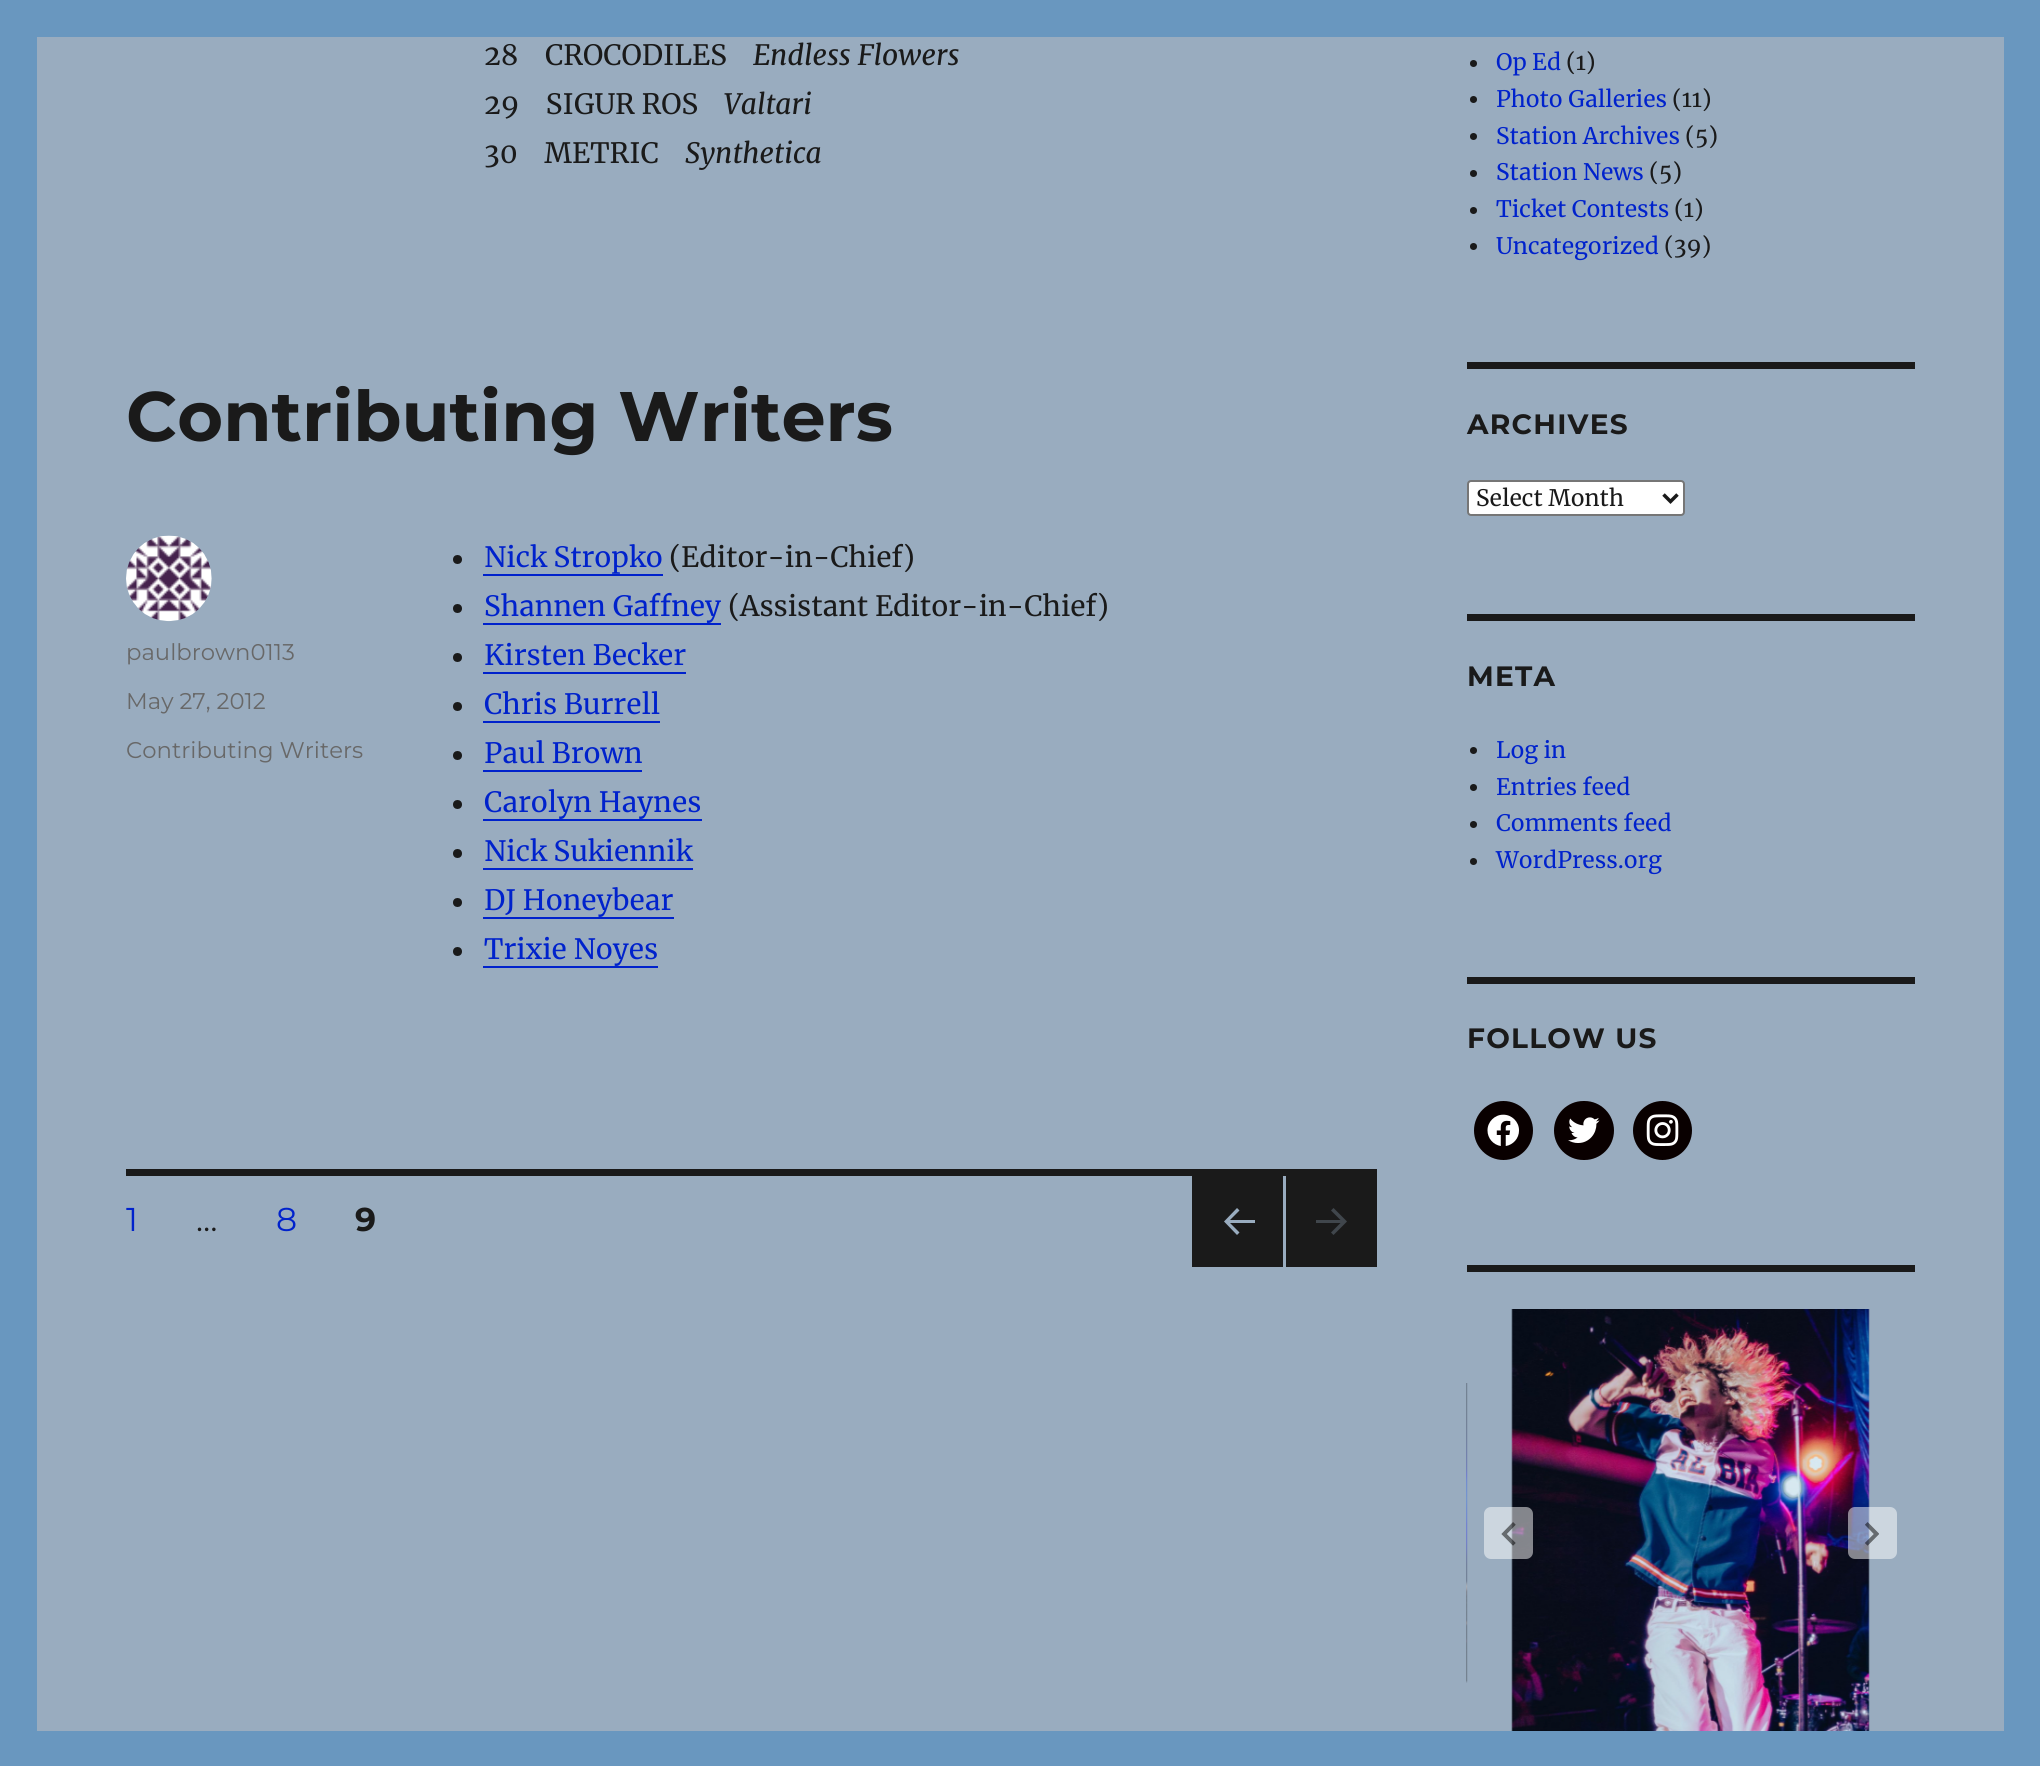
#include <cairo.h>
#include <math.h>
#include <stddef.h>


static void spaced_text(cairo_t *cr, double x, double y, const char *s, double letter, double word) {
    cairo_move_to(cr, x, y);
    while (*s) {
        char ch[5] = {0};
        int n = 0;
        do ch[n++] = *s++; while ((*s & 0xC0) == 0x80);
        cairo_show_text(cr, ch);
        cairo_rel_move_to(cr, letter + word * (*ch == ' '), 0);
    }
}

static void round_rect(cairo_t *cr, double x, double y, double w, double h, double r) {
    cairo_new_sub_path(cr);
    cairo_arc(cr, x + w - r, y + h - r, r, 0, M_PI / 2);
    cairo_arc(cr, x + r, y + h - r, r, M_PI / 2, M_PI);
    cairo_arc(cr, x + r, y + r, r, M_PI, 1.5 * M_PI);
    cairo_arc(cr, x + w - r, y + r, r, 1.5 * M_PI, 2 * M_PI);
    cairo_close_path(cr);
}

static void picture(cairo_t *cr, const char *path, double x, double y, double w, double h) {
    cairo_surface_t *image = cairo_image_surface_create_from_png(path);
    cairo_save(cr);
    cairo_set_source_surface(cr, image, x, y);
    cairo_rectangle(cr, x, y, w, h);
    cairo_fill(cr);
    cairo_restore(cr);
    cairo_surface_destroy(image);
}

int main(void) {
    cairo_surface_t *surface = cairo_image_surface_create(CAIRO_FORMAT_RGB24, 2040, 1766);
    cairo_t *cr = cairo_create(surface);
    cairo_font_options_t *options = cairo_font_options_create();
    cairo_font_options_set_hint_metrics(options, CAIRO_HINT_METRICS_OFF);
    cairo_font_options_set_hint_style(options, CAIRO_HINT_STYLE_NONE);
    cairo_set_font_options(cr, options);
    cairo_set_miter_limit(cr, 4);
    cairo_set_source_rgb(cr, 0.412, 0.592, 0.749);
    cairo_paint(cr);
    cairo_set_source_rgb(cr, 0.6, 0.675, 0.749);
    cairo_rectangle(cr, 37, 37, 1967, 1694);
    cairo_fill(cr);
    cairo_select_font_face(cr, "Merriweather", CAIRO_FONT_SLANT_NORMAL, CAIRO_FONT_WEIGHT_NORMAL);
    cairo_set_font_size(cr, 28);
    cairo_set_source_rgb(cr, 0.102, 0.102, 0.102);
    cairo_move_to(cr, 484, 65);
    cairo_show_text(cr, "28    CROCODILES");
    cairo_select_font_face(cr, "Merriweather", CAIRO_FONT_SLANT_ITALIC, CAIRO_FONT_WEIGHT_NORMAL);
    cairo_move_to(cr, 753, 65);
    cairo_show_text(cr, "Endless Flowers");
    cairo_select_font_face(cr, "Merriweather", CAIRO_FONT_SLANT_NORMAL, CAIRO_FONT_WEIGHT_NORMAL);
    cairo_move_to(cr, 484, 114);
    cairo_show_text(cr, "29    SIGUR ROS");
    cairo_select_font_face(cr, "Merriweather", CAIRO_FONT_SLANT_ITALIC, CAIRO_FONT_WEIGHT_NORMAL);
    cairo_move_to(cr, 724, 114);
    cairo_show_text(cr, "Valtari");
    cairo_select_font_face(cr, "Merriweather", CAIRO_FONT_SLANT_NORMAL, CAIRO_FONT_WEIGHT_NORMAL);
    cairo_move_to(cr, 484, 163);
    cairo_show_text(cr, "30    METRIC");
    cairo_select_font_face(cr, "Merriweather", CAIRO_FONT_SLANT_ITALIC, CAIRO_FONT_WEIGHT_NORMAL);
    cairo_move_to(cr, 685, 163);
    cairo_show_text(cr, "Synthetica");
    cairo_select_font_face(cr, "Montserrat Thin", CAIRO_FONT_SLANT_NORMAL, CAIRO_FONT_WEIGHT_NORMAL);
    cairo_set_font_size(cr, 70);
    cairo_move_to(cr, 126, 441);
    cairo_show_text(cr, "Contributing Writers");
    picture(cr, "img1.png", 126, 535, 86, 87);
    cairo_select_font_face(cr, "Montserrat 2 Thin", CAIRO_FONT_SLANT_NORMAL, CAIRO_FONT_WEIGHT_NORMAL);
    cairo_set_font_size(cr, 22.75);
    cairo_set_source_rgb(cr, 0.408, 0.408, 0.408);
    cairo_move_to(cr, 126, 660);
    cairo_show_text(cr, "paulbrown0113");
    cairo_move_to(cr, 126, 709);
    cairo_show_text(cr, "May 27, 2012");
    cairo_move_to(cr, 126, 758);
    cairo_show_text(cr, "Contributing Writers");
    cairo_set_source_rgb(cr, 0.102, 0.102, 0.102);
    cairo_new_path(cr);
    cairo_arc(cr, 457.5, 559.5, 4.5, 0, 2 * M_PI);
    cairo_fill(cr);
    cairo_select_font_face(cr, "Merriweather", CAIRO_FONT_SLANT_NORMAL, CAIRO_FONT_WEIGHT_NORMAL);
    cairo_set_font_size(cr, 28);
    cairo_set_source_rgb(cr, 0, 0.133, 0.8);
    cairo_move_to(cr, 484, 567);
    cairo_show_text(cr, "Nick Stropko");
    cairo_rectangle(cr, 483, 574, 180, 2);
    cairo_fill(cr);
    cairo_set_source_rgb(cr, 0.102, 0.102, 0.102);
    cairo_move_to(cr, 669, 567);
    cairo_show_text(cr, "(Editor-in-Chief)");
    cairo_new_path(cr);
    cairo_arc(cr, 457.5, 608.5, 4.5, 0, 2 * M_PI);
    cairo_fill(cr);
    cairo_set_source_rgb(cr, 0, 0.133, 0.8);
    cairo_move_to(cr, 484, 616);
    cairo_show_text(cr, "Shannen Gaffney");
    cairo_rectangle(cr, 483, 623, 238, 2);
    cairo_fill(cr);
    cairo_set_source_rgb(cr, 0.102, 0.102, 0.102);
    cairo_move_to(cr, 728, 616);
    cairo_show_text(cr, "(Assistant Editor-in-Chief)");
    cairo_new_path(cr);
    cairo_arc(cr, 457.5, 657.5, 4.5, 0, 2 * M_PI);
    cairo_fill(cr);
    cairo_set_source_rgb(cr, 0, 0.133, 0.8);
    cairo_move_to(cr, 484, 665);
    cairo_show_text(cr, "Kirsten Becker");
    cairo_rectangle(cr, 483, 672, 203, 2);
    cairo_fill(cr);
    cairo_set_source_rgb(cr, 0.102, 0.102, 0.102);
    cairo_arc(cr, 457.5, 706.5, 4.5, 0, 2 * M_PI);
    cairo_fill(cr);
    cairo_set_source_rgb(cr, 0, 0.133, 0.8);
    cairo_move_to(cr, 484, 714);
    cairo_show_text(cr, "Chris Burrell");
    cairo_new_path(cr);
    cairo_move_to(cr, 483, 721);
    cairo_line_to(cr, 483, 723);
    cairo_line_to(cr, 660, 723);
    cairo_line_to(cr, 660, 688);
    cairo_line_to(cr, 660, 721);
    cairo_close_path(cr);
    cairo_fill(cr);
    cairo_set_source_rgb(cr, 0.102, 0.102, 0.102);
    cairo_arc(cr, 457.5, 755.5, 4.5, 0, 2 * M_PI);
    cairo_fill(cr);
    cairo_set_source_rgb(cr, 0, 0.133, 0.8);
    cairo_move_to(cr, 484, 763);
    cairo_show_text(cr, "Paul Brown");
    cairo_rectangle(cr, 483, 770, 159, 2);
    cairo_fill(cr);
    cairo_set_source_rgb(cr, 0.102, 0.102, 0.102);
    cairo_arc(cr, 457.5, 804.5, 4.5, 0, 2 * M_PI);
    cairo_fill(cr);
    cairo_set_source_rgb(cr, 0, 0.133, 0.8);
    cairo_move_to(cr, 484, 812);
    cairo_show_text(cr, "Carolyn Haynes");
    cairo_new_path(cr);
    cairo_move_to(cr, 483, 819);
    cairo_line_to(cr, 483, 821);
    cairo_line_to(cr, 702, 821);
    cairo_line_to(cr, 702, 786);
    cairo_line_to(cr, 702, 819);
    cairo_close_path(cr);
    cairo_fill(cr);
    cairo_set_source_rgb(cr, 0.102, 0.102, 0.102);
    cairo_arc(cr, 457.5, 853.5, 4.5, 0, 2 * M_PI);
    cairo_fill(cr);
    cairo_set_source_rgb(cr, 0, 0.133, 0.8);
    cairo_move_to(cr, 484, 861);
    cairo_show_text(cr, "Nick Sukiennik");
    cairo_rectangle(cr, 483, 868, 210, 2);
    cairo_fill(cr);
    cairo_set_source_rgb(cr, 0.102, 0.102, 0.102);
    cairo_arc(cr, 457.5, 902.5, 4.5, 0, 2 * M_PI);
    cairo_fill(cr);
    cairo_set_source_rgb(cr, 0, 0.133, 0.8);
    cairo_move_to(cr, 484, 910);
    cairo_show_text(cr, "DJ Honeybear");
    cairo_new_path(cr);
    cairo_move_to(cr, 483, 917);
    cairo_line_to(cr, 483, 919);
    cairo_line_to(cr, 674, 919);
    cairo_line_to(cr, 674, 884);
    cairo_line_to(cr, 674, 917);
    cairo_close_path(cr);
    cairo_fill(cr);
    cairo_set_source_rgb(cr, 0.102, 0.102, 0.102);
    cairo_arc(cr, 457.5, 951.5, 4.5, 0, 2 * M_PI);
    cairo_fill(cr);
    cairo_set_source_rgb(cr, 0, 0.133, 0.8);
    cairo_move_to(cr, 484, 959);
    cairo_show_text(cr, "Trixie Noyes");
    cairo_rectangle(cr, 483, 966, 175, 2);
    cairo_fill(cr);
    cairo_set_source_rgb(cr, 0.102, 0.102, 0.102);
    cairo_rectangle(cr, 126, 1169, 1251, 7);
    cairo_fill(cr);
    cairo_select_font_face(cr, "Montserrat 2 Thin", CAIRO_FONT_SLANT_NORMAL, CAIRO_FONT_WEIGHT_NORMAL);
    cairo_set_font_size(cr, 33);
    cairo_set_source_rgb(cr, 0, 0.133, 0.8);
    cairo_move_to(cr, 126, 1231);
    cairo_show_text(cr, "1");
    cairo_set_source_rgb(cr, 0.102, 0.102, 0.102);
    cairo_move_to(cr, 196, 1231);
    cairo_show_text(cr, "…");
    cairo_set_source_rgb(cr, 0, 0.133, 0.8);
    cairo_move_to(cr, 276, 1231);
    cairo_show_text(cr, "8");
    cairo_select_font_face(cr, "Montserrat Thin", CAIRO_FONT_SLANT_NORMAL, CAIRO_FONT_WEIGHT_NORMAL);
    cairo_set_source_rgb(cr, 0.102, 0.102, 0.102);
    cairo_move_to(cr, 355, 1231);
    cairo_show_text(cr, "9");
    cairo_rectangle(cr, 1192, 1176, 91, 91);
    cairo_fill(cr);
    cairo_set_source_rgb(cr, 0.6, 0.675, 0.749);
    cairo_new_path(cr);
    cairo_move_to(cr, 1237, 1208);
    cairo_line_to(cr, 1239.5, 1210.5);
    cairo_line_to(cr, 1230, 1220);
    cairo_line_to(cr, 1255, 1220);
    cairo_line_to(cr, 1255, 1223);
    cairo_line_to(cr, 1230, 1223);
    cairo_line_to(cr, 1239.5, 1232.5);
    cairo_line_to(cr, 1237, 1235);
    cairo_line_to(cr, 1224, 1221.5);
    cairo_close_path(cr);
    cairo_fill(cr);
    cairo_set_source_rgb(cr, 0.102, 0.102, 0.102);
    cairo_rectangle(cr, 1286, 1176, 91, 91);
    cairo_fill(cr);
    cairo_set_source_rgb(cr, 0.251, 0.275, 0.298);
    cairo_new_path(cr);
    cairo_move_to(cr, 1333.5, 1208);
    cairo_line_to(cr, 1347, 1221.5);
    cairo_line_to(cr, 1333.5, 1235);
    cairo_line_to(cr, 1331, 1232.5);
    cairo_line_to(cr, 1340.5, 1223);
    cairo_line_to(cr, 1316, 1223);
    cairo_line_to(cr, 1316, 1220);
    cairo_line_to(cr, 1340.5, 1220);
    cairo_line_to(cr, 1331, 1210.5);
    cairo_close_path(cr);
    cairo_fill(cr);
    cairo_set_source_rgb(cr, 0.102, 0.102, 0.102);
    cairo_arc(cr, 1473.5, 63.5, 3.5, 0, 2 * M_PI);
    cairo_fill(cr);
    cairo_select_font_face(cr, "Merriweather", CAIRO_FONT_SLANT_NORMAL, CAIRO_FONT_WEIGHT_NORMAL);
    cairo_set_font_size(cr, 22.75);
    cairo_set_source_rgb(cr, 0, 0.133, 0.8);
    cairo_move_to(cr, 1496, 70);
    cairo_show_text(cr, "Op Ed");
    cairo_set_source_rgb(cr, 0.102, 0.102, 0.102);
    cairo_move_to(cr, 1566, 70);
    cairo_show_text(cr, "(1)");
    cairo_new_path(cr);
    cairo_arc(cr, 1473.5, 99.5, 3.5, 0, 2 * M_PI);
    cairo_fill(cr);
    cairo_set_source_rgb(cr, 0, 0.133, 0.8);
    cairo_move_to(cr, 1496, 107);
    cairo_show_text(cr, "Photo Galleries");
    cairo_set_source_rgb(cr, 0.102, 0.102, 0.102);
    cairo_move_to(cr, 1672, 107);
    cairo_show_text(cr, "(11)");
    cairo_new_path(cr);
    cairo_arc(cr, 1473.5, 136.5, 3.5, 0, 2 * M_PI);
    cairo_fill(cr);
    cairo_set_source_rgb(cr, 0, 0.133, 0.8);
    cairo_move_to(cr, 1496, 144);
    cairo_show_text(cr, "Station Archives");
    cairo_set_source_rgb(cr, 0.102, 0.102, 0.102);
    cairo_move_to(cr, 1685, 144);
    cairo_show_text(cr, "(5)");
    cairo_new_path(cr);
    cairo_arc(cr, 1473.5, 173.5, 3.5, 0, 2 * M_PI);
    cairo_fill(cr);
    cairo_set_source_rgb(cr, 0, 0.133, 0.8);
    cairo_move_to(cr, 1496, 180);
    cairo_show_text(cr, "Station News");
    cairo_set_source_rgb(cr, 0.102, 0.102, 0.102);
    cairo_move_to(cr, 1649, 180);
    cairo_show_text(cr, "(5)");
    cairo_new_path(cr);
    cairo_arc(cr, 1473.5, 210.5, 3.5, 0, 2 * M_PI);
    cairo_fill(cr);
    cairo_set_source_rgb(cr, 0, 0.133, 0.8);
    cairo_move_to(cr, 1496, 217);
    cairo_show_text(cr, "Ticket Contests");
    cairo_set_source_rgb(cr, 0.102, 0.102, 0.102);
    cairo_move_to(cr, 1674, 217);
    cairo_show_text(cr, "(1)");
    cairo_new_path(cr);
    cairo_arc(cr, 1473.5, 246.5, 3.5, 0, 2 * M_PI);
    cairo_fill(cr);
    cairo_set_source_rgb(cr, 0, 0.133, 0.8);
    cairo_move_to(cr, 1496, 254);
    cairo_show_text(cr, "Uncategorized");
    cairo_set_source_rgb(cr, 0.102, 0.102, 0.102);
    cairo_move_to(cr, 1664, 254);
    cairo_show_text(cr, "(39)");
    cairo_rectangle(cr, 1467, 362, 448, 7);
    cairo_fill(cr);
    cairo_select_font_face(cr, "Montserrat Thin", CAIRO_FONT_SLANT_NORMAL, CAIRO_FONT_WEIGHT_NORMAL);
    cairo_set_font_size(cr, 28);
    spaced_text(cr, 1467, 434, "ARCHIVES", 1.25, 0);
    cairo_set_source_rgb(cr, 1, 1, 1);
    round_rect(cr, 1468, 481, 216, 34, 3);
    cairo_fill_preserve(cr);
    cairo_set_source_rgb(cr, 0.463, 0.463, 0.463);
    cairo_stroke(cr);
    cairo_new_path(cr);
    cairo_move_to(cr, 1663.5, 494.5);
    cairo_line_to(cr, 1670.5, 501.5);
    cairo_line_to(cr, 1677.5, 494.5);
    cairo_set_source_rgb(cr, 0.102, 0.102, 0.102);
    cairo_set_line_width(cr, 3.5);
    cairo_stroke(cr);
    cairo_select_font_face(cr, "Merriweather", CAIRO_FONT_SLANT_NORMAL, CAIRO_FONT_WEIGHT_NORMAL);
    cairo_set_font_size(cr, 22.75);
    cairo_move_to(cr, 1476, 506);
    cairo_show_text(cr, "Select Month");
    cairo_rectangle(cr, 1467, 614, 448, 7);
    cairo_fill(cr);
    cairo_select_font_face(cr, "Montserrat Thin", CAIRO_FONT_SLANT_NORMAL, CAIRO_FONT_WEIGHT_NORMAL);
    cairo_set_font_size(cr, 28);
    spaced_text(cr, 1467, 686, "META", 1.25, 0);
    cairo_new_path(cr);
    cairo_arc(cr, 1473.5, 750.5, 3.5, 0, 2 * M_PI);
    cairo_fill(cr);
    cairo_select_font_face(cr, "Merriweather", CAIRO_FONT_SLANT_NORMAL, CAIRO_FONT_WEIGHT_NORMAL);
    cairo_set_font_size(cr, 22.75);
    cairo_set_source_rgb(cr, 0, 0.133, 0.8);
    cairo_move_to(cr, 1496, 758);
    cairo_show_text(cr, "Log in");
    cairo_set_source_rgb(cr, 0.102, 0.102, 0.102);
    cairo_new_path(cr);
    cairo_arc(cr, 1473.5, 787.5, 3.5, 0, 2 * M_PI);
    cairo_fill(cr);
    cairo_set_source_rgb(cr, 0, 0.133, 0.8);
    cairo_move_to(cr, 1496, 795);
    cairo_show_text(cr, "Entries feed");
    cairo_set_source_rgb(cr, 0.102, 0.102, 0.102);
    cairo_new_path(cr);
    cairo_arc(cr, 1473.5, 824.5, 3.5, 0, 2 * M_PI);
    cairo_fill(cr);
    cairo_set_source_rgb(cr, 0, 0.133, 0.8);
    cairo_move_to(cr, 1496, 831);
    cairo_show_text(cr, "Comments feed");
    cairo_set_source_rgb(cr, 0.102, 0.102, 0.102);
    cairo_new_path(cr);
    cairo_arc(cr, 1473.5, 861.5, 3.5, 0, 2 * M_PI);
    cairo_fill(cr);
    cairo_set_source_rgb(cr, 0, 0.133, 0.8);
    cairo_move_to(cr, 1496, 868);
    cairo_show_text(cr, "WordPress.org");
    cairo_set_source_rgb(cr, 0.102, 0.102, 0.102);
    cairo_rectangle(cr, 1467, 977, 448, 7);
    cairo_fill(cr);
    cairo_select_font_face(cr, "Montserrat Thin", CAIRO_FONT_SLANT_NORMAL, CAIRO_FONT_WEIGHT_NORMAL);
    cairo_set_font_size(cr, 28);
    spaced_text(cr, 1467, 1048, "FOLLOW US", 1.25, 0);
    cairo_set_source_rgb(cr, 0.039, 0, 0);
    cairo_new_path(cr);
    cairo_arc(cr, 1503.5, 1130.5, 29.5, 0, 2 * M_PI);
    cairo_fill(cr);
    picture(cr, "img2.png", 1487, 1114, 32, 32);
    round_rect(cr, 1554, 1101, 60, 59, 29.5);
    cairo_fill(cr);
    picture(cr, "img3.png", 1568, 1117, 32, 26);
    cairo_arc(cr, 1662.5, 1130.5, 29.5, 0, 2 * M_PI);
    cairo_fill(cr);
    picture(cr, "img4.png", 1646, 1114, 33, 32);
    cairo_set_source_rgb(cr, 0.102, 0.102, 0.102);
    cairo_rectangle(cr, 1467, 1265, 448, 7);
    cairo_fill(cr);
    picture(cr, "img5.png", 1466, 1383, 2, 300);
    picture(cr, "img6.png", 1511, 1309, 359, 422);
    cairo_set_source_rgba(cr, 1, 1, 1, 0.5);
    round_rect(cr, 1484, 1507, 49, 52, 7);
    cairo_fill(cr);
    picture(cr, "img7.png", 1501, 1522, 15, 24);
    round_rect(cr, 1848, 1507, 49, 52, 7);
    cairo_fill(cr);
    picture(cr, "img8.png", 1865, 1522, 14, 24);
    cairo_surface_write_to_png(surface, "page.png");
    cairo_font_options_destroy(options);
    cairo_destroy(cr);
    cairo_surface_destroy(surface);
    return 0;
}
